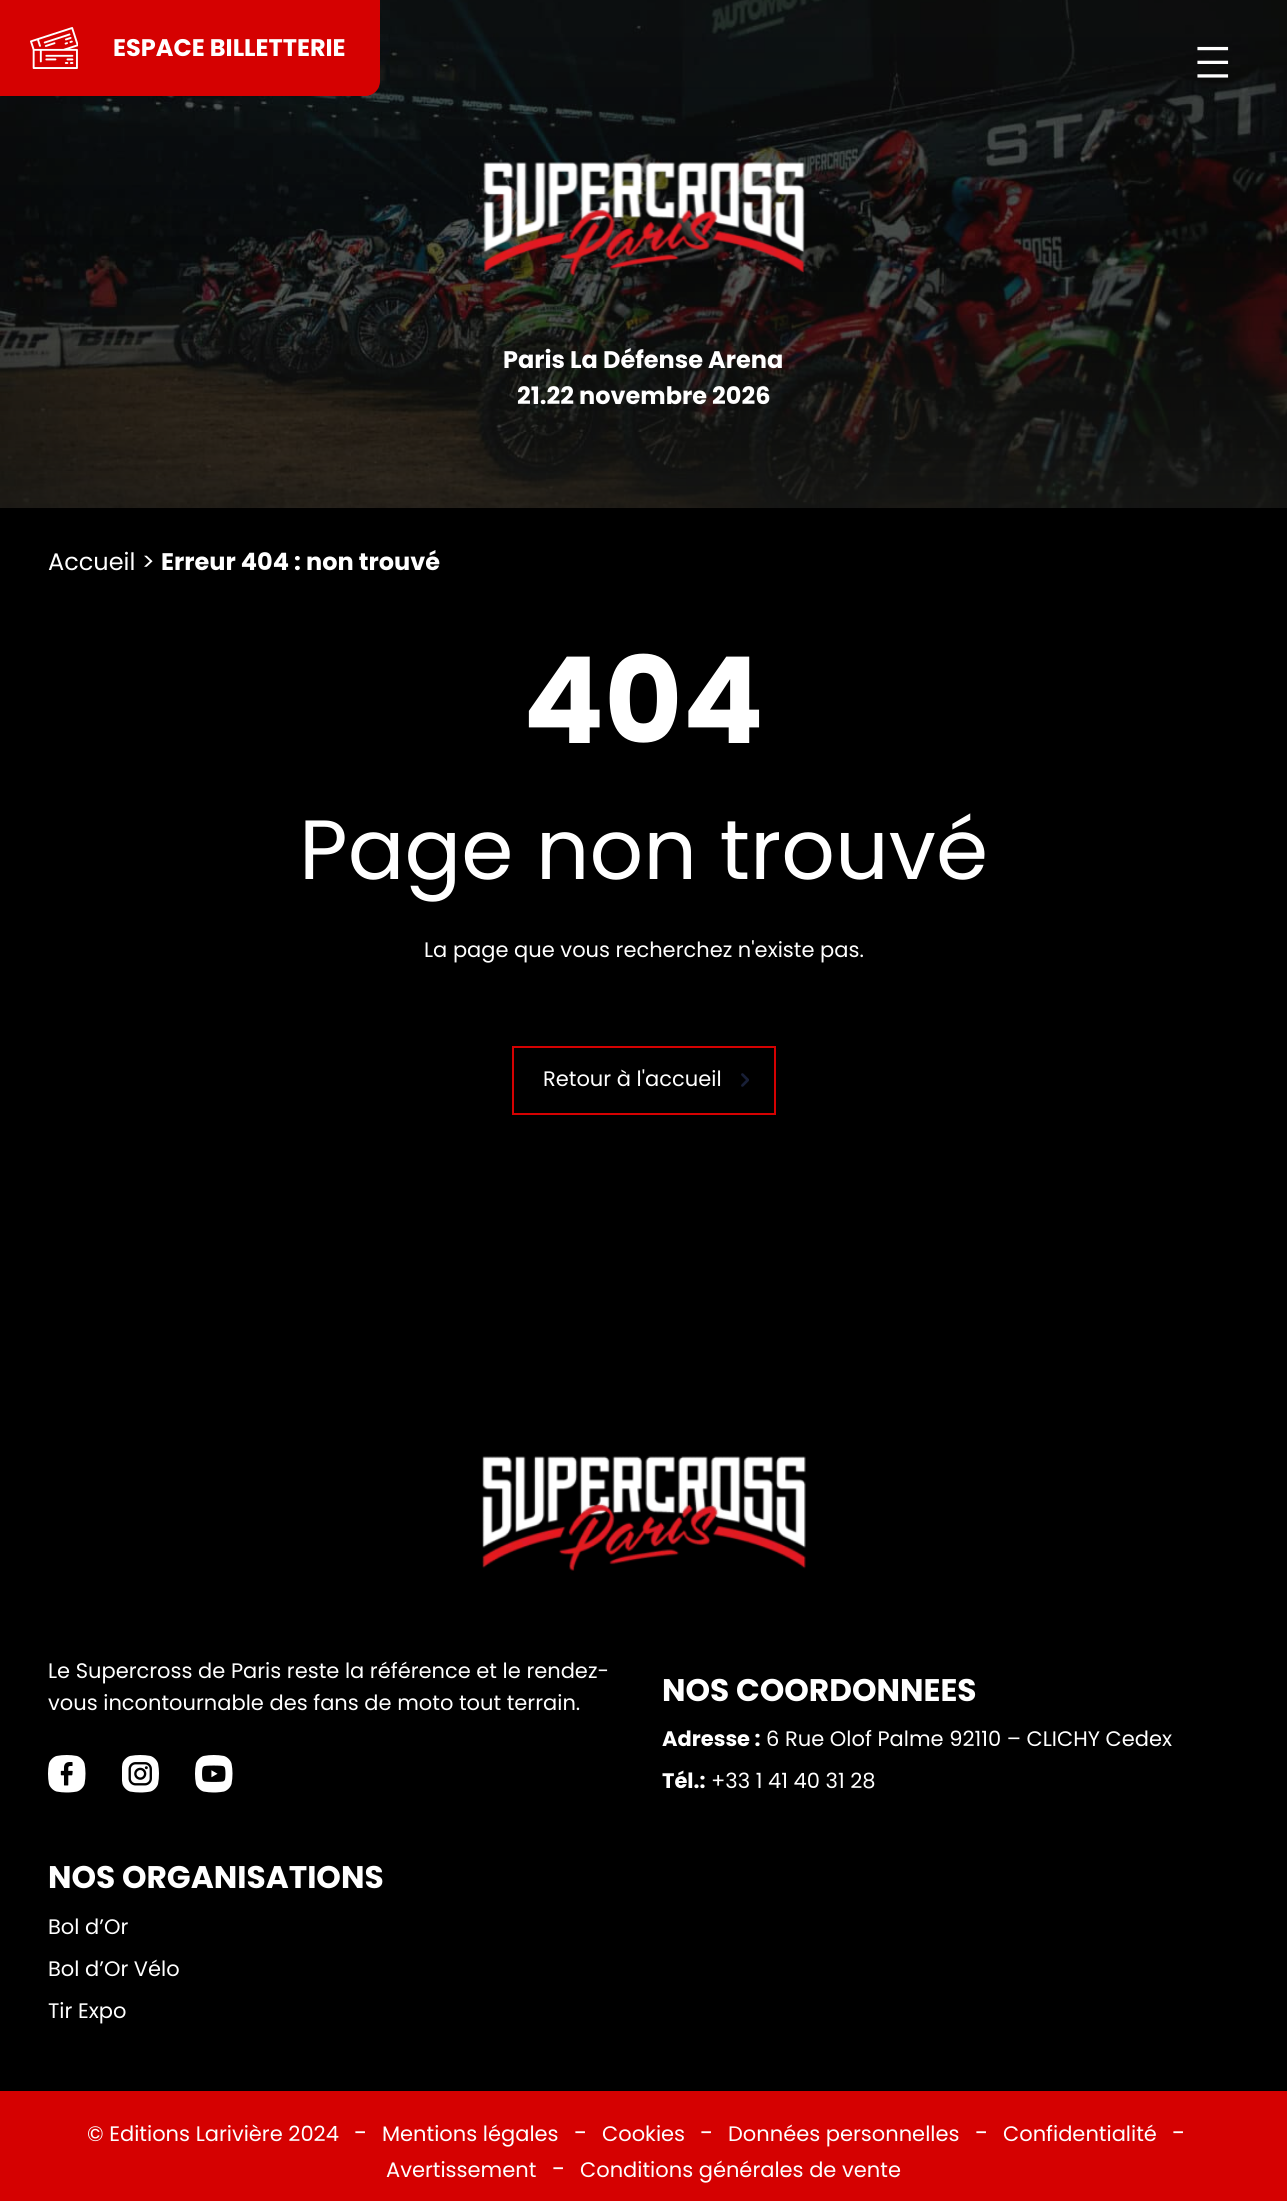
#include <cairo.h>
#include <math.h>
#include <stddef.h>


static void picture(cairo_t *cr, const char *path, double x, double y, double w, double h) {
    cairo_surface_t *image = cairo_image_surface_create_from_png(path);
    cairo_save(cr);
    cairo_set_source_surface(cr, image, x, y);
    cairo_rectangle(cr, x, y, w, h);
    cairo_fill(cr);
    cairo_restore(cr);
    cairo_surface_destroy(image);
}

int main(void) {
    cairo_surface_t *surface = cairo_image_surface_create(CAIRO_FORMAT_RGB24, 1287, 2201);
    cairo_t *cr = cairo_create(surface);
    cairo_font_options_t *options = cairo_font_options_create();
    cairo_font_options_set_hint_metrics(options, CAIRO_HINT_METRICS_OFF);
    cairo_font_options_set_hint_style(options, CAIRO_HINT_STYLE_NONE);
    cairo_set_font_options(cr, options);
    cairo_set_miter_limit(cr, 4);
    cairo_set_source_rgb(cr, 0, 0, 0);
    cairo_paint(cr);
    picture(cr, "img4.png", 0, 0, 1287, 508);
    cairo_set_source_rgb(cr, 0.835, 0.004, 0.004);
    cairo_new_path(cr);
    cairo_move_to(cr, 0, 0);
    cairo_line_to(cr, 380, 0);
    cairo_line_to(cr, 380, 81);
    cairo_curve_to(cr, 380, 89.5, 373.5, 96, 365, 96);
    cairo_line_to(cr, 0, 96);
    cairo_close_path(cr);
    cairo_fill(cr);
    picture(cr, "img1.png", 30, 27, 48, 42);
    cairo_select_font_face(cr, "Poppins", CAIRO_FONT_SLANT_NORMAL, CAIRO_FONT_WEIGHT_BOLD);
    cairo_set_font_size(cr, 24);
    cairo_set_source_rgb(cr, 1, 1, 1);
    cairo_move_to(cr, 113, 56);
    cairo_show_text(cr, "ESPACE BILLETTERIE");
    picture(cr, "img2.png", 483, 162, 322, 114);
    cairo_move_to(cr, 503, 368);
    cairo_show_text(cr, "Paris La Défense Arena");
    cairo_move_to(cr, 517, 404);
    cairo_show_text(cr, "21.22 novembre 2026");
    picture(cr, "img3.png", 1197, 46, 32, 32);
    cairo_select_font_face(cr, "Poppins", CAIRO_FONT_SLANT_NORMAL, CAIRO_FONT_WEIGHT_NORMAL);
    cairo_move_to(cr, 48, 570);
    cairo_show_text(cr, "Accueil >");
    cairo_select_font_face(cr, "Poppins", CAIRO_FONT_SLANT_NORMAL, CAIRO_FONT_WEIGHT_BOLD);
    cairo_move_to(cr, 161, 570);
    cairo_show_text(cr, "Erreur 404 : non trouvé");
    cairo_set_font_size(cr, 120);
    cairo_move_to(cr, 523, 743);
    cairo_show_text(cr, "404");
    cairo_select_font_face(cr, "Poppins", CAIRO_FONT_SLANT_NORMAL, CAIRO_FONT_WEIGHT_NORMAL);
    cairo_set_font_size(cr, 84);
    cairo_move_to(cr, 299, 879);
    cairo_show_text(cr, "Page non trouvé");
    cairo_set_font_size(cr, 21);
    cairo_move_to(cr, 424, 957);
    cairo_show_text(cr, "La page que vous recherchez n'existe pas.");
    cairo_rectangle(cr, 513, 1047, 262, 67);
    cairo_set_source_rgb(cr, 0.835, 0.004, 0.004);
    cairo_stroke(cr);
    cairo_set_source_rgb(cr, 1, 1, 1);
    cairo_move_to(cr, 543, 1086);
    cairo_show_text(cr, "Retour à l'accueil");
    picture(cr, "img5.png", 741, 1073, 8, 14);
    picture(cr, "img6.png", 482, 1456, 324, 115);
    cairo_move_to(cr, 48, 1678);
    cairo_show_text(cr, "Le Supercross de Paris reste la référence et le rendez-");
    cairo_move_to(cr, 48, 1710);
    cairo_show_text(cr, "vous incontournable des fans de moto tout terrain.");
    picture(cr, "img7.png", 48, 1755, 38, 38);
    picture(cr, "img8.png", 122, 1755, 37, 38);
    picture(cr, "img9.png", 195, 1755, 38, 38);
    cairo_select_font_face(cr, "Poppins", CAIRO_FONT_SLANT_NORMAL, CAIRO_FONT_WEIGHT_BOLD);
    cairo_set_font_size(cr, 31.25);
    cairo_move_to(cr, 662, 1701);
    cairo_show_text(cr, "NOS COORDONNEES");
    cairo_set_font_size(cr, 21);
    cairo_move_to(cr, 662, 1746);
    cairo_show_text(cr, "Adresse :");
    cairo_select_font_face(cr, "Poppins", CAIRO_FONT_SLANT_NORMAL, CAIRO_FONT_WEIGHT_NORMAL);
    cairo_move_to(cr, 766, 1746);
    cairo_show_text(cr, "6 Rue Olof Palme 92110 – CLICHY Cedex");
    cairo_select_font_face(cr, "Poppins", CAIRO_FONT_SLANT_NORMAL, CAIRO_FONT_WEIGHT_BOLD);
    cairo_move_to(cr, 662, 1788);
    cairo_show_text(cr, "Tél.:");
    cairo_select_font_face(cr, "Poppins", CAIRO_FONT_SLANT_NORMAL, CAIRO_FONT_WEIGHT_NORMAL);
    cairo_move_to(cr, 711, 1788);
    cairo_show_text(cr, "+33 1 41 40 31 28");
    cairo_select_font_face(cr, "Poppins", CAIRO_FONT_SLANT_NORMAL, CAIRO_FONT_WEIGHT_BOLD);
    cairo_set_font_size(cr, 31.25);
    cairo_move_to(cr, 48, 1888);
    cairo_show_text(cr, "NOS ORGANISATIONS");
    cairo_select_font_face(cr, "Poppins", CAIRO_FONT_SLANT_NORMAL, CAIRO_FONT_WEIGHT_NORMAL);
    cairo_set_font_size(cr, 21);
    cairo_move_to(cr, 48, 1934);
    cairo_show_text(cr, "Bol d’Or");
    cairo_move_to(cr, 48, 1976);
    cairo_show_text(cr, "Bol d’Or Vélo");
    cairo_move_to(cr, 48, 2018);
    cairo_show_text(cr, "Tir Expo");
    cairo_set_source_rgb(cr, 0.835, 0.004, 0.004);
    cairo_rectangle(cr, 0, 2091, 1287, 110);
    cairo_fill(cr);
    cairo_set_source_rgb(cr, 1, 1, 1);
    cairo_move_to(cr, 87, 2141);
    cairo_show_text(cr, "© Editions Larivière 2024");
    cairo_set_font_size(cr, 24);
    cairo_move_to(cr, 354, 2141);
    cairo_show_text(cr, "-");
    cairo_set_font_size(cr, 21);
    cairo_move_to(cr, 382, 2141);
    cairo_show_text(cr, "Mentions légales");
    cairo_set_font_size(cr, 24);
    cairo_move_to(cr, 574, 2141);
    cairo_show_text(cr, "-");
    cairo_set_font_size(cr, 21);
    cairo_move_to(cr, 602, 2141);
    cairo_show_text(cr, "Cookies");
    cairo_set_font_size(cr, 24);
    cairo_move_to(cr, 700, 2141);
    cairo_show_text(cr, "-");
    cairo_set_font_size(cr, 21);
    cairo_move_to(cr, 728, 2141);
    cairo_show_text(cr, "Données personnelles");
    cairo_set_font_size(cr, 24);
    cairo_move_to(cr, 975, 2141);
    cairo_show_text(cr, "-");
    cairo_set_font_size(cr, 21);
    cairo_move_to(cr, 1003, 2141);
    cairo_show_text(cr, "Confidentialité");
    cairo_set_font_size(cr, 24);
    cairo_move_to(cr, 1172, 2141);
    cairo_show_text(cr, "-");
    cairo_set_font_size(cr, 21);
    cairo_move_to(cr, 386, 2177);
    cairo_show_text(cr, "Avertissement");
    cairo_set_font_size(cr, 24);
    cairo_move_to(cr, 552, 2177);
    cairo_show_text(cr, "-");
    cairo_set_font_size(cr, 21);
    cairo_move_to(cr, 580, 2177);
    cairo_show_text(cr, "Conditions générales de vente");
    cairo_surface_write_to_png(surface, "page.png");
    cairo_font_options_destroy(options);
    cairo_destroy(cr);
    cairo_surface_destroy(surface);
    return 0;
}
